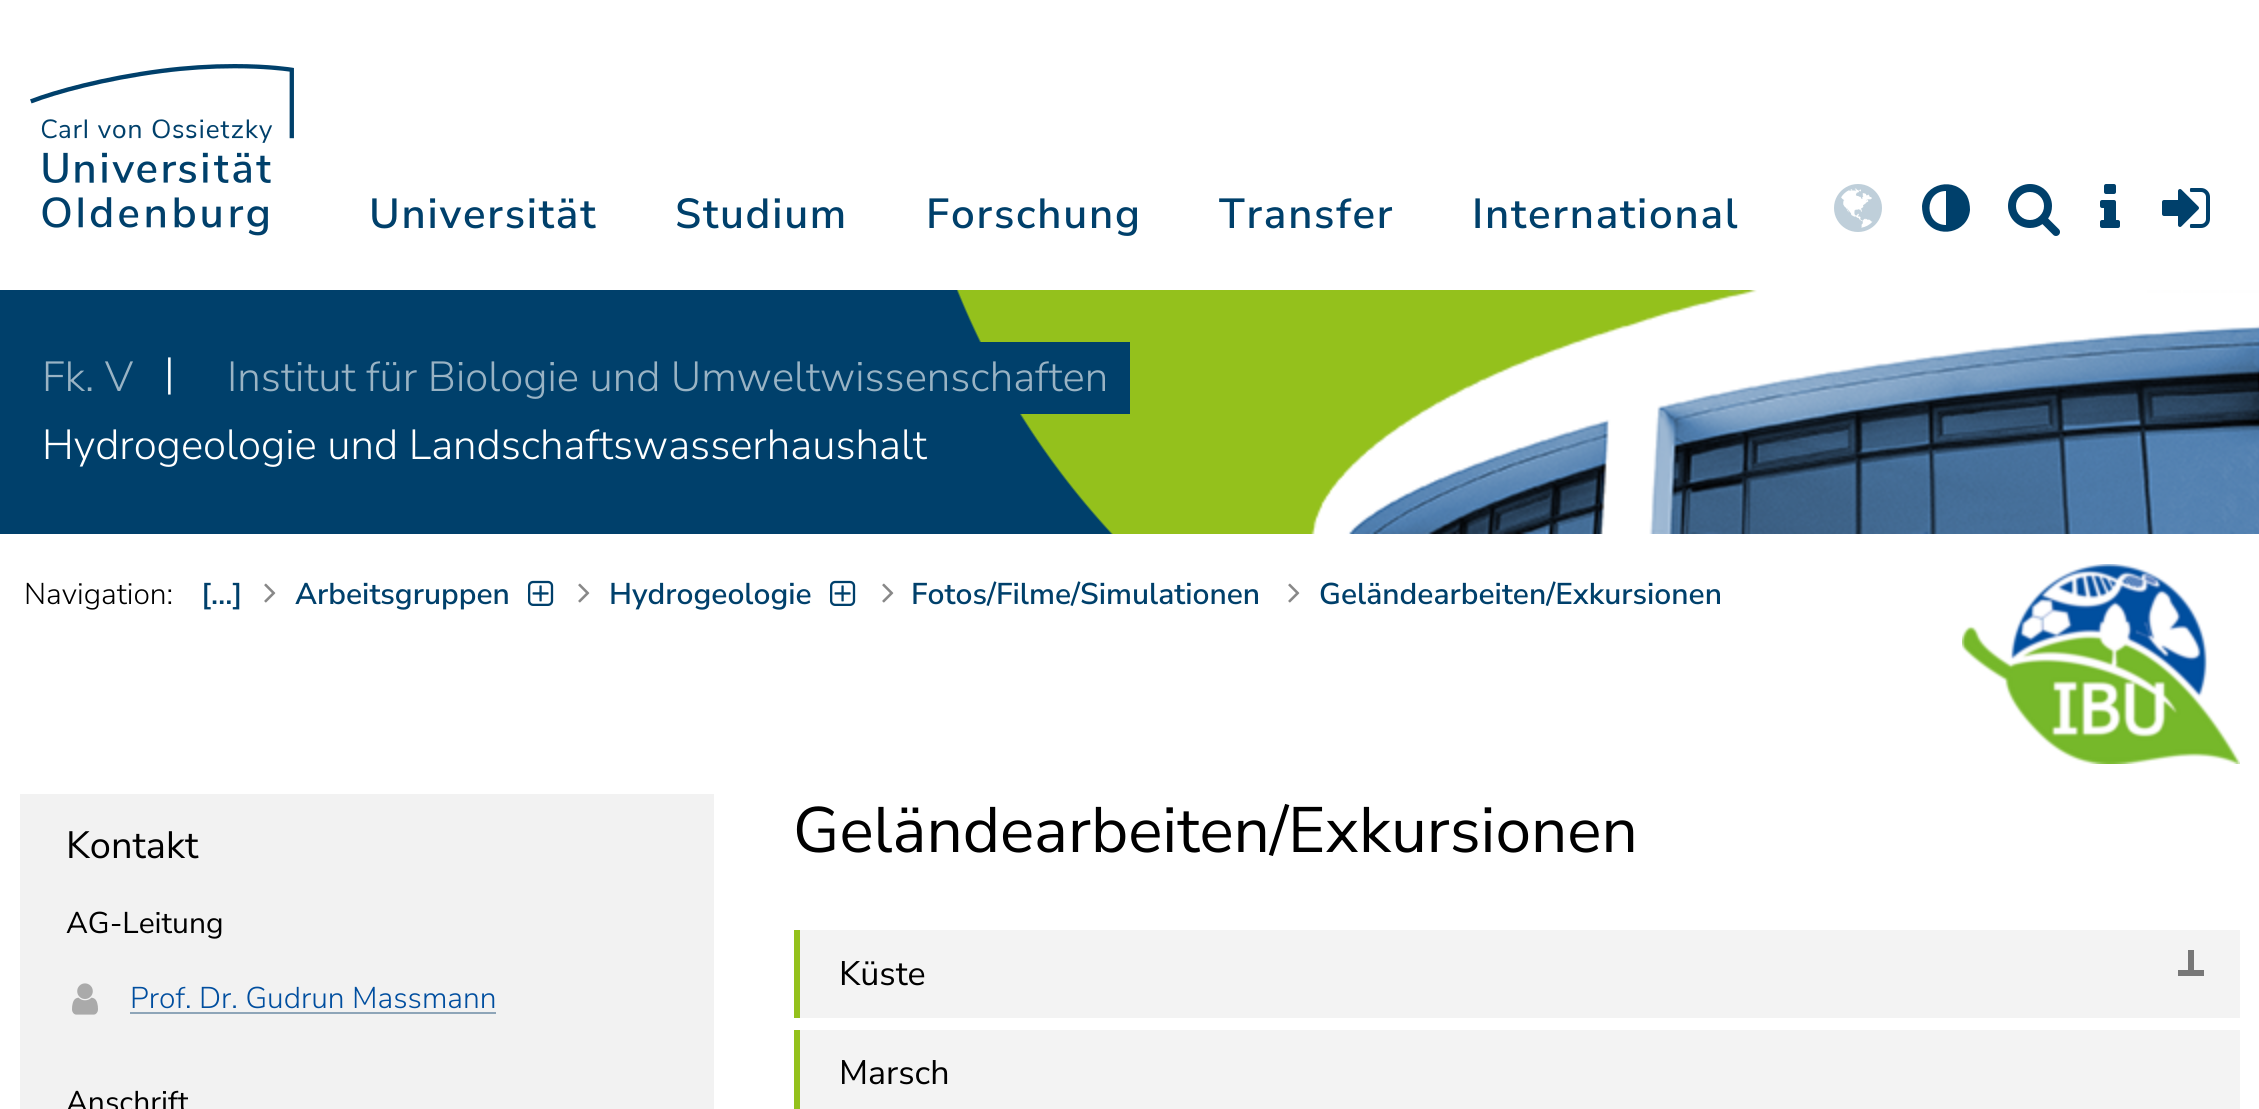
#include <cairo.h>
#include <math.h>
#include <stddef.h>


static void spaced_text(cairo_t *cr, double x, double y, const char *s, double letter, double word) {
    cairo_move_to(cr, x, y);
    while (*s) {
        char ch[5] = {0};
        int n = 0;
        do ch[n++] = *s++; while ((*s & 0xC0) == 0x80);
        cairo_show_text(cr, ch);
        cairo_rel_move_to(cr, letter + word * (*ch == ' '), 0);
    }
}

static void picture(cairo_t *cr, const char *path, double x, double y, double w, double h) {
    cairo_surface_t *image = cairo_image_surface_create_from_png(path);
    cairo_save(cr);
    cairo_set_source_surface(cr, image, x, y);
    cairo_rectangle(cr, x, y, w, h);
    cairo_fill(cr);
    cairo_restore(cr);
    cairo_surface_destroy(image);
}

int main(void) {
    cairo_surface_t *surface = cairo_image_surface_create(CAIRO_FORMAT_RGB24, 2259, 1109);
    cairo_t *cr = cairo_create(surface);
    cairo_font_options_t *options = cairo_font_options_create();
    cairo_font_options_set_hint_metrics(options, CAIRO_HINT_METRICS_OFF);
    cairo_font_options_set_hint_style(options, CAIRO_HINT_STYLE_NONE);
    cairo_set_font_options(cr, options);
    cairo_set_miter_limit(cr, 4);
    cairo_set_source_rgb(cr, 1, 1, 1);
    cairo_paint(cr);
    picture(cr, "img1.png", 30, 64, 264, 172);
    cairo_select_font_face(cr, "Nunito Sans SemiBold", CAIRO_FONT_SLANT_NORMAL, CAIRO_FONT_WEIGHT_NORMAL);
    cairo_set_font_size(cr, 42);
    cairo_set_source_rgb(cr, 0, 0.251, 0.42);
    spaced_text(cr, 369, 228, "Universität", 1.75, 0);
    spaced_text(cr, 675, 228, "Studium", 1.75, 0);
    spaced_text(cr, 926, 228, "Forschung", 1.75, 0);
    spaced_text(cr, 1219, 228, "Transfer", 1.75, 0);
    spaced_text(cr, 1472, 228, "International", 1.75, 0);
    picture(cr, "img2.png", 1834, 184, 48, 48);
    cairo_new_path(cr);
    cairo_move_to(cr, 1946, 225);
    cairo_line_to(cr, 1946, 191);
    cairo_curve_to(cr, 1924, 191, 1924, 225, 1946, 225);
    cairo_close_path(cr);
    cairo_move_to(cr, 1967, 196);
    cairo_curve_to(cr, 1969, 200, 1970, 205, 1970, 210);
    cairo_curve_to(cr, 1968, 233, 1937, 240, 1925, 220);
    cairo_curve_to(cr, 1923, 216, 1922, 211, 1922, 206);
    cairo_curve_to(cr, 1924, 183, 1955, 176, 1967, 196);
    cairo_close_path(cr);
    cairo_fill(cr);
    picture(cr, "img3.png", 2008, 184, 52, 52);
    picture(cr, "img4.png", 2100, 184, 20, 44);
    picture(cr, "img5.png", 2162, 188, 48, 40);
    cairo_rectangle(cr, 0, 290, 1113, 244);
    cairo_fill(cr);
    picture(cr, "img6.png", 956, 290, 1303, 244);
    cairo_select_font_face(cr, "Nunito Sans Light", CAIRO_FONT_SLANT_NORMAL, CAIRO_FONT_WEIGHT_NORMAL);
    cairo_set_source_rgb(cr, 0.6, 0.702, 0.769);
    cairo_move_to(cr, 42, 391);
    cairo_show_text(cr, "Fk. V");
    cairo_set_source_rgb(cr, 1, 1, 1);
    cairo_move_to(cr, 164, 387);
    cairo_show_text(cr, "|");
    cairo_set_source_rgb(cr, 0, 0.251, 0.42);
    cairo_rectangle(cr, 980, 342, 150, 72);
    cairo_fill(cr);
    cairo_set_source_rgb(cr, 0.6, 0.702, 0.769);
    cairo_move_to(cr, 227, 391);
    cairo_show_text(cr, "Institut für Biologie und Umweltwissenschaften");
    cairo_set_source_rgb(cr, 1, 1, 1);
    cairo_move_to(cr, 42, 459);
    cairo_show_text(cr, "Hydrogeologie und Landschaftswasserhaushalt");
    cairo_set_font_size(cr, 30);
    cairo_set_source_rgb(cr, 0, 0, 0);
    cairo_move_to(cr, 24, 604);
    cairo_show_text(cr, "Navigation:");
    cairo_select_font_face(cr, "Nunito Sans SemiBold", CAIRO_FONT_SLANT_NORMAL, CAIRO_FONT_WEIGHT_NORMAL);
    cairo_set_source_rgb(cr, 0, 0.251, 0.42);
    cairo_move_to(cr, 201, 604);
    cairo_show_text(cr, "[…]");
    picture(cr, "img7.png", 264, 583, 12, 20);
    cairo_move_to(cr, 295, 604);
    cairo_show_text(cr, "Arbeitsgruppen");
    picture(cr, "img8.png", 528, 580, 26, 26);
    picture(cr, "img7.png", 578, 583, 12, 20);
    cairo_move_to(cr, 609, 604);
    cairo_show_text(cr, "Hydrogeologie");
    picture(cr, "img8.png", 830, 580, 26, 26);
    picture(cr, "img7.png", 882, 583, 12, 20);
    cairo_move_to(cr, 911, 604);
    cairo_show_text(cr, "Fotos/Filme/Simulationen");
    picture(cr, "img7.png", 1288, 583, 12, 20);
    cairo_move_to(cr, 1319, 604);
    cairo_show_text(cr, "Geländearbeiten/Exkursionen");
    picture(cr, "img9.png", 1962, 564, 278, 200);
    cairo_set_source_rgb(cr, 0.949, 0.949, 0.949);
    cairo_rectangle(cr, 20, 794, 694, 315);
    cairo_fill(cr);
    cairo_select_font_face(cr, "Nunito Sans", CAIRO_FONT_SLANT_NORMAL, CAIRO_FONT_WEIGHT_NORMAL);
    cairo_set_font_size(cr, 38);
    cairo_set_source_rgb(cr, 0, 0, 0);
    cairo_move_to(cr, 66, 858);
    cairo_show_text(cr, "Kontakt");
    cairo_set_font_size(cr, 30);
    cairo_move_to(cr, 66, 933);
    cairo_show_text(cr, "AG-Leitung");
    picture(cr, "img10.png", 72, 983, 26, 32);
    cairo_select_font_face(cr, "Nunito Sans Light", CAIRO_FONT_SLANT_NORMAL, CAIRO_FONT_WEIGHT_NORMAL);
    cairo_set_source_rgb(cr, 0, 0.306, 0.624);
    cairo_move_to(cr, 130, 1008);
    cairo_show_text(cr, "Prof. Dr. Gudrun Massmann");
    cairo_set_source_rgb(cr, 0.557, 0.647, 0.722);
    cairo_rectangle(cr, 130, 1012, 366, 2);
    cairo_fill(cr);
    cairo_select_font_face(cr, "Nunito Sans", CAIRO_FONT_SLANT_NORMAL, CAIRO_FONT_WEIGHT_NORMAL);
    cairo_set_source_rgb(cr, 0, 0, 0);
    cairo_move_to(cr, 66, 1112);
    cairo_show_text(cr, "Anschrift");
    cairo_set_font_size(cr, 64);
    cairo_move_to(cr, 793, 852);
    cairo_show_text(cr, "Geländearbeiten/Exkursionen");
    cairo_set_source_rgb(cr, 0.953, 0.953, 0.953);
    cairo_rectangle(cr, 800, 930, 1440, 88);
    cairo_fill(cr);
    cairo_set_source_rgb(cr, 0.58, 0.757, 0.11);
    cairo_rectangle(cr, 794, 930, 6, 88);
    cairo_fill(cr);
    cairo_set_font_size(cr, 34);
    cairo_set_source_rgb(cr, 0, 0, 0);
    cairo_move_to(cr, 839, 985);
    cairo_show_text(cr, "Küste");
    cairo_set_source_rgb(cr, 0.467, 0.467, 0.467);
    cairo_rectangle(cr, 2188, 950, 6, 26);
    cairo_fill(cr);
    cairo_rectangle(cr, 2178, 970, 26, 6);
    cairo_fill(cr);
    cairo_set_source_rgb(cr, 0.953, 0.953, 0.953);
    cairo_rectangle(cr, 800, 1030, 1440, 79);
    cairo_fill(cr);
    cairo_set_source_rgb(cr, 0.58, 0.757, 0.11);
    cairo_rectangle(cr, 794, 1030, 6, 79);
    cairo_fill(cr);
    cairo_set_source_rgb(cr, 0, 0, 0);
    cairo_move_to(cr, 839, 1084);
    cairo_show_text(cr, "Marsch");
    cairo_surface_write_to_png(surface, "page.png");
    cairo_font_options_destroy(options);
    cairo_destroy(cr);
    cairo_surface_destroy(surface);
    return 0;
}
